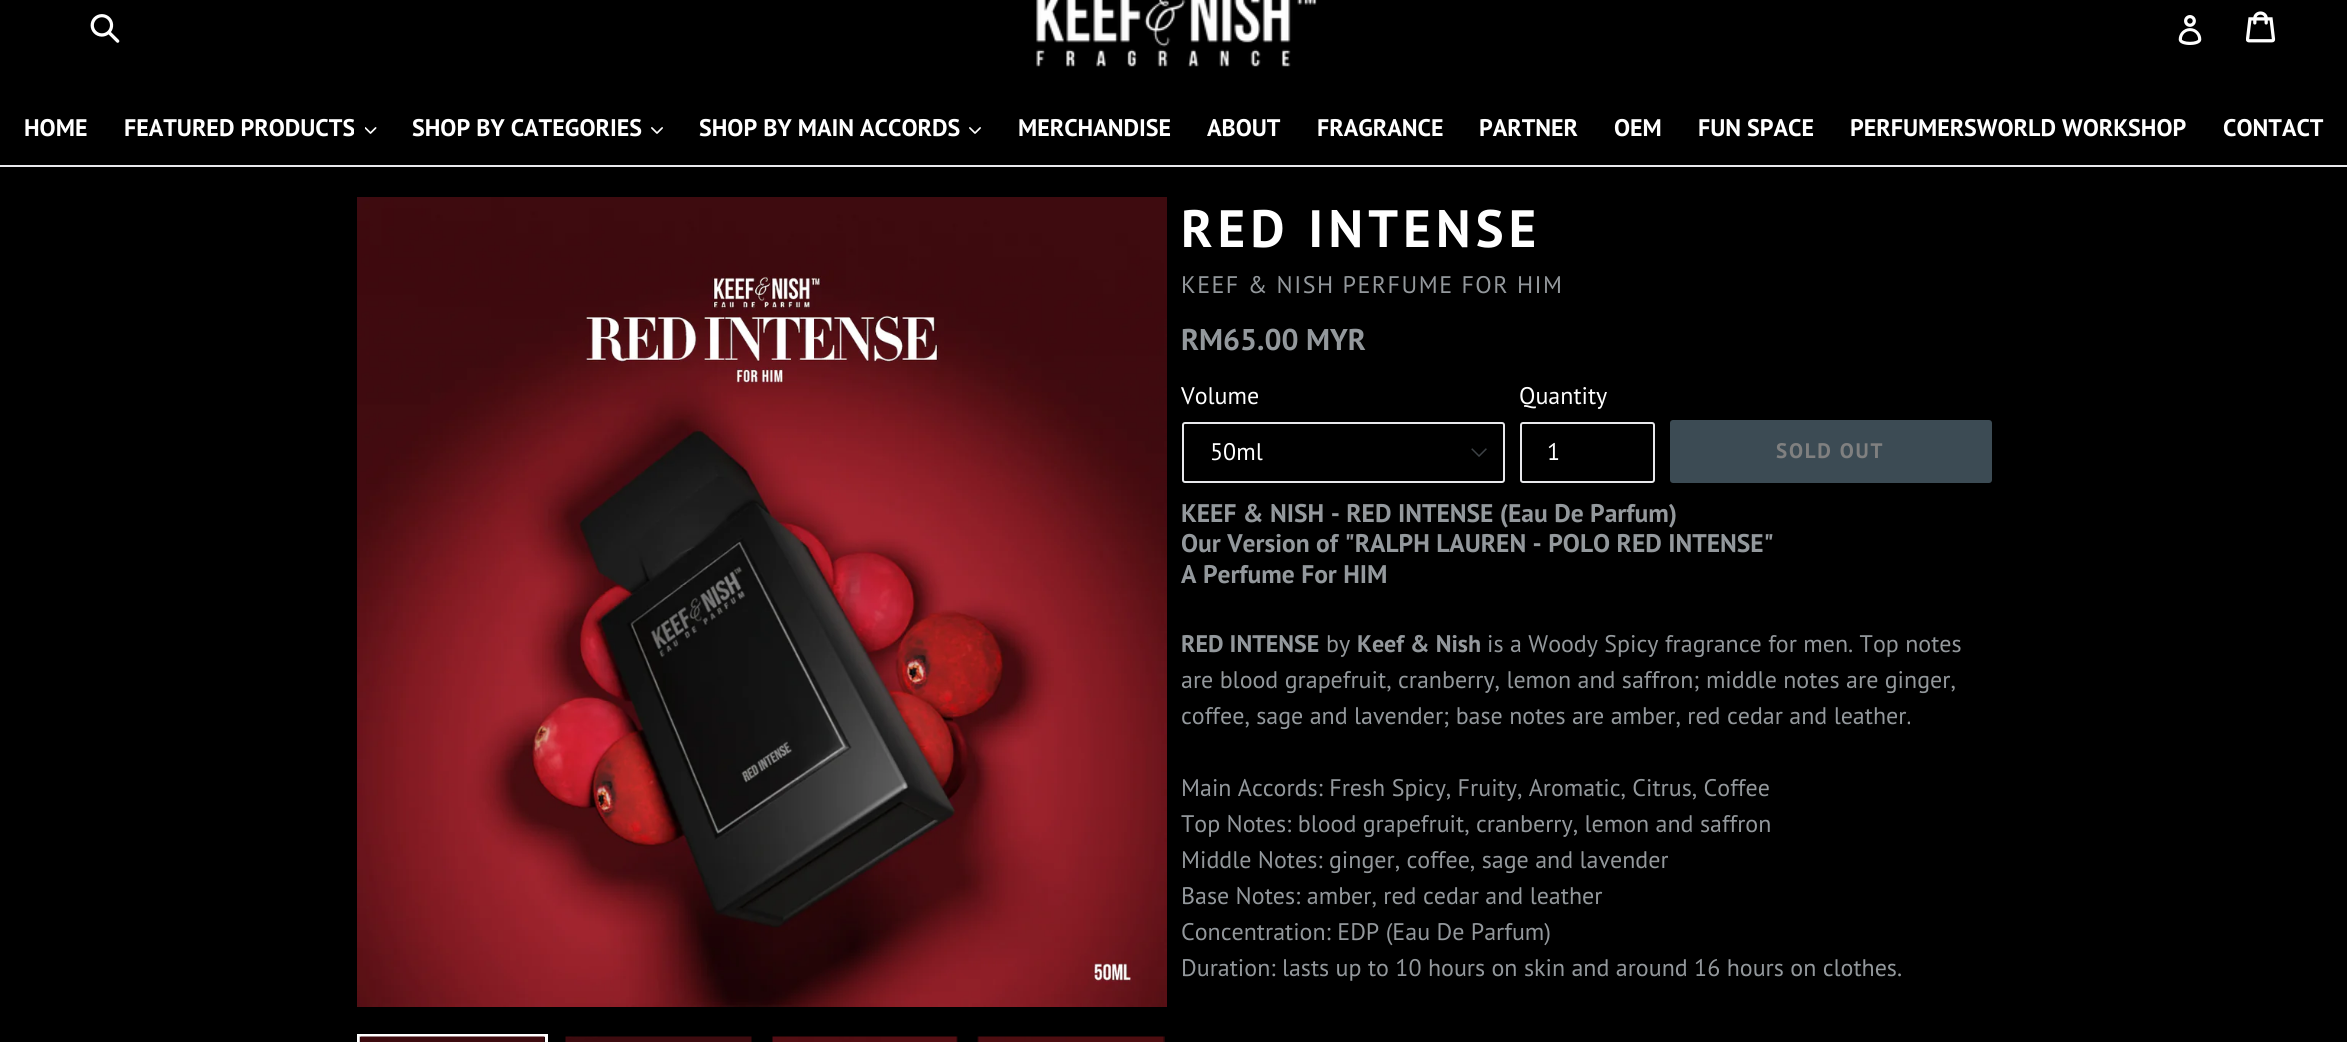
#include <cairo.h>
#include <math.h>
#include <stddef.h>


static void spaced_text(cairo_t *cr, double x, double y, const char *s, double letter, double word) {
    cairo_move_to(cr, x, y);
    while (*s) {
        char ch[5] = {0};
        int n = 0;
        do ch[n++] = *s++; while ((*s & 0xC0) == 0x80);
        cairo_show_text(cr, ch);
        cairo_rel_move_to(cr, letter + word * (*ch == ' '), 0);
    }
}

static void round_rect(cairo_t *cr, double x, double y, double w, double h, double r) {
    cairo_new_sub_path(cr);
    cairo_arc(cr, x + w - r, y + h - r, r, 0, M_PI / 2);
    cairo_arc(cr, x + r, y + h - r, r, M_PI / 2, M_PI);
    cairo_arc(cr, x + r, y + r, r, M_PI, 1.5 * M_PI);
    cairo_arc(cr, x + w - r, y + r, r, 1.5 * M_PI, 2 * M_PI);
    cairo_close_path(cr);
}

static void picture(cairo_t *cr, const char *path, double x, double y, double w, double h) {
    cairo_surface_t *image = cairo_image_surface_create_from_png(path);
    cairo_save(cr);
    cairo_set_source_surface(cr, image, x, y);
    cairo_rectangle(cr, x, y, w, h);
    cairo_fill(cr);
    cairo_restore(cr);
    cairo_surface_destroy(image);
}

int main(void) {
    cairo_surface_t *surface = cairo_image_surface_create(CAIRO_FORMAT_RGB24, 2347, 1042);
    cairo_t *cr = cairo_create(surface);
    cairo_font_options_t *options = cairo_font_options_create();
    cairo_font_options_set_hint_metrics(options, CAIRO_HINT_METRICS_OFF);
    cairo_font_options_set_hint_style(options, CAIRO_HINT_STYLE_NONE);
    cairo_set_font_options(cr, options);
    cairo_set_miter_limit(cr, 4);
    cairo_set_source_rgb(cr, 0, 0, 0);
    cairo_paint(cr);
    picture(cr, "img1.png", 90, 14, 30, 29);
    picture(cr, "img2.png", 1036, 0, 281, 67);
    picture(cr, "img3.png", 2178, 15, 24, 30);
    picture(cr, "img4.png", 2246, 11, 30, 32);
    cairo_set_source_rgb(cr, 0.91, 0.914, 0.922);
    cairo_rectangle(cr, 0, 165, 2347, 2);
    cairo_fill(cr);
    cairo_select_font_face(cr, "PT Sans", CAIRO_FONT_SLANT_NORMAL, CAIRO_FONT_WEIGHT_BOLD);
    cairo_set_font_size(cr, 24);
    cairo_set_source_rgb(cr, 1, 1, 1);
    cairo_move_to(cr, 24, 136);
    cairo_show_text(cr, "HOME");
    cairo_move_to(cr, 124, 136);
    cairo_show_text(cr, "FEATURED PRODUCTS");
    picture(cr, "img5.png", 365, 127, 12, 7);
    cairo_move_to(cr, 412, 136);
    cairo_show_text(cr, "SHOP BY CATEGORIES");
    picture(cr, "img6.png", 651, 127, 12, 7);
    cairo_move_to(cr, 699, 136);
    cairo_show_text(cr, "SHOP BY MAIN ACCORDS");
    picture(cr, "img6.png", 969, 127, 12, 7);
    cairo_move_to(cr, 1018, 136);
    cairo_show_text(cr, "MERCHANDISE");
    cairo_move_to(cr, 1207, 136);
    cairo_show_text(cr, "ABOUT");
    cairo_move_to(cr, 1317, 136);
    cairo_show_text(cr, "FRAGRANCE");
    cairo_move_to(cr, 1479, 136);
    cairo_show_text(cr, "PARTNER");
    cairo_move_to(cr, 1614, 136);
    cairo_show_text(cr, "OEM");
    cairo_move_to(cr, 1698, 136);
    cairo_show_text(cr, "FUN SPACE");
    cairo_move_to(cr, 1850, 136);
    cairo_show_text(cr, "PERFUMERSWORLD WORKSHOP");
    cairo_move_to(cr, 2223, 136);
    cairo_show_text(cr, "CONTACT");
    picture(cr, "img7.png", 357, 197, 810, 810);
    cairo_rectangle(cr, 358.5, 1035.5, 188, 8);
    cairo_set_line_width(cr, 3);
    cairo_stroke(cr);
    picture(cr, "img8.png", 359, 1036, 186, 6);
    picture(cr, "img9.png", 565, 1036, 187, 6);
    picture(cr, "img10.png", 772, 1036, 186, 6);
    picture(cr, "img11.png", 977, 1036, 188, 6);
    cairo_set_font_size(cr, 52.5);
    spaced_text(cr, 1181, 247, "RED INTENSE", 5.25, 0);
    cairo_select_font_face(cr, "PT Sans", CAIRO_FONT_SLANT_NORMAL, CAIRO_FONT_WEIGHT_NORMAL);
    cairo_set_font_size(cr, 24);
    cairo_set_source_rgb(cr, 0.576, 0.596, 0.612);
    spaced_text(cr, 1181, 293, "KEEF & NISH PERFUME FOR HIM", 1.5, 0);
    cairo_select_font_face(cr, "PT Sans", CAIRO_FONT_SLANT_NORMAL, CAIRO_FONT_WEIGHT_BOLD);
    cairo_set_font_size(cr, 30);
    cairo_move_to(cr, 1181, 350);
    cairo_show_text(cr, "RM65.00 MYR");
    cairo_select_font_face(cr, "PT Sans", CAIRO_FONT_SLANT_NORMAL, CAIRO_FONT_WEIGHT_NORMAL);
    cairo_set_font_size(cr, 24);
    cairo_set_source_rgb(cr, 1, 1, 1);
    cairo_move_to(cr, 1181, 404);
    cairo_show_text(cr, "Volume");
    picture(cr, "img12.png", 1471, 448, 16, 9);
    round_rect(cr, 1183, 423, 321, 59, 2);
    cairo_set_source_rgb(cr, 0.91, 0.914, 0.922);
    cairo_set_line_width(cr, 2);
    cairo_stroke(cr);
    cairo_set_source_rgb(cr, 1, 1, 1);
    cairo_move_to(cr, 1210, 460);
    cairo_show_text(cr, "50ml");
    cairo_move_to(cr, 1519, 404);
    cairo_show_text(cr, "Quantity");
    round_rect(cr, 1521, 423, 133, 59, 2);
    cairo_set_source_rgb(cr, 0.91, 0.914, 0.922);
    cairo_stroke(cr);
    cairo_set_source_rgb(cr, 1, 1, 1);
    cairo_move_to(cr, 1547, 460);
    cairo_show_text(cr, "1");
    cairo_set_source_rgb(cr, 0.235, 0.294, 0.329);
    round_rect(cr, 1670, 420, 322, 63, 3);
    cairo_fill(cr);
    cairo_select_font_face(cr, "PT Sans", CAIRO_FONT_SLANT_NORMAL, CAIRO_FONT_WEIGHT_BOLD);
    cairo_set_font_size(cr, 21);
    cairo_set_source_rgb(cr, 0.502, 0.502, 0.502);
    spaced_text(cr, 1776, 458, "SOLD OUT", 1.75, 0);
    cairo_set_font_size(cr, 25.5);
    cairo_set_source_rgb(cr, 0.576, 0.596, 0.612);
    cairo_move_to(cr, 1181, 522);
    cairo_show_text(cr, "KEEF & NISH - RED INTENSE (Eau De Parfum)");
    cairo_move_to(cr, 1181, 552);
    cairo_show_text(cr, "Our Version of \"RALPH LAUREN - POLO RED INTENSE\"");
    cairo_move_to(cr, 1181, 583);
    cairo_show_text(cr, "A Perfume For HIM");
    cairo_set_font_size(cr, 24);
    cairo_move_to(cr, 1181, 652);
    cairo_show_text(cr, "RED INTENSE");
    cairo_select_font_face(cr, "PT Sans", CAIRO_FONT_SLANT_NORMAL, CAIRO_FONT_WEIGHT_NORMAL);
    cairo_move_to(cr, 1326, 652);
    cairo_show_text(cr, "by");
    cairo_select_font_face(cr, "PT Sans", CAIRO_FONT_SLANT_NORMAL, CAIRO_FONT_WEIGHT_BOLD);
    cairo_move_to(cr, 1357, 652);
    cairo_show_text(cr, "Keef & Nish");
    cairo_select_font_face(cr, "PT Sans", CAIRO_FONT_SLANT_NORMAL, CAIRO_FONT_WEIGHT_NORMAL);
    cairo_move_to(cr, 1487, 652);
    cairo_show_text(cr, "is a Woody Spicy fragrance for men. Top notes");
    cairo_move_to(cr, 1181, 688);
    cairo_show_text(cr, "are blood grapefruit, cranberry, lemon and saffron; middle notes are ginger,");
    cairo_move_to(cr, 1181, 724);
    cairo_show_text(cr, "coffee, sage and lavender; base notes are amber, red cedar and leather.");
    cairo_move_to(cr, 1181, 796);
    cairo_show_text(cr, "Main Accords: Fresh Spicy, Fruity, Aromatic, Citrus, Coffee");
    cairo_move_to(cr, 1181, 832);
    cairo_show_text(cr, "Top Notes: blood grapefruit, cranberry, lemon and saffron");
    cairo_move_to(cr, 1181, 868);
    cairo_show_text(cr, "Middle Notes: ginger, coffee, sage and lavender");
    cairo_move_to(cr, 1181, 904);
    cairo_show_text(cr, "Base Notes: amber, red cedar and leather");
    cairo_move_to(cr, 1181, 940);
    cairo_show_text(cr, "Concentration: EDP (Eau De Parfum)");
    cairo_move_to(cr, 1181, 976);
    cairo_show_text(cr, "Duration: lasts up to 10 hours on skin and around 16 hours on clothes.");
    cairo_surface_write_to_png(surface, "page.png");
    cairo_font_options_destroy(options);
    cairo_destroy(cr);
    cairo_surface_destroy(surface);
    return 0;
}
